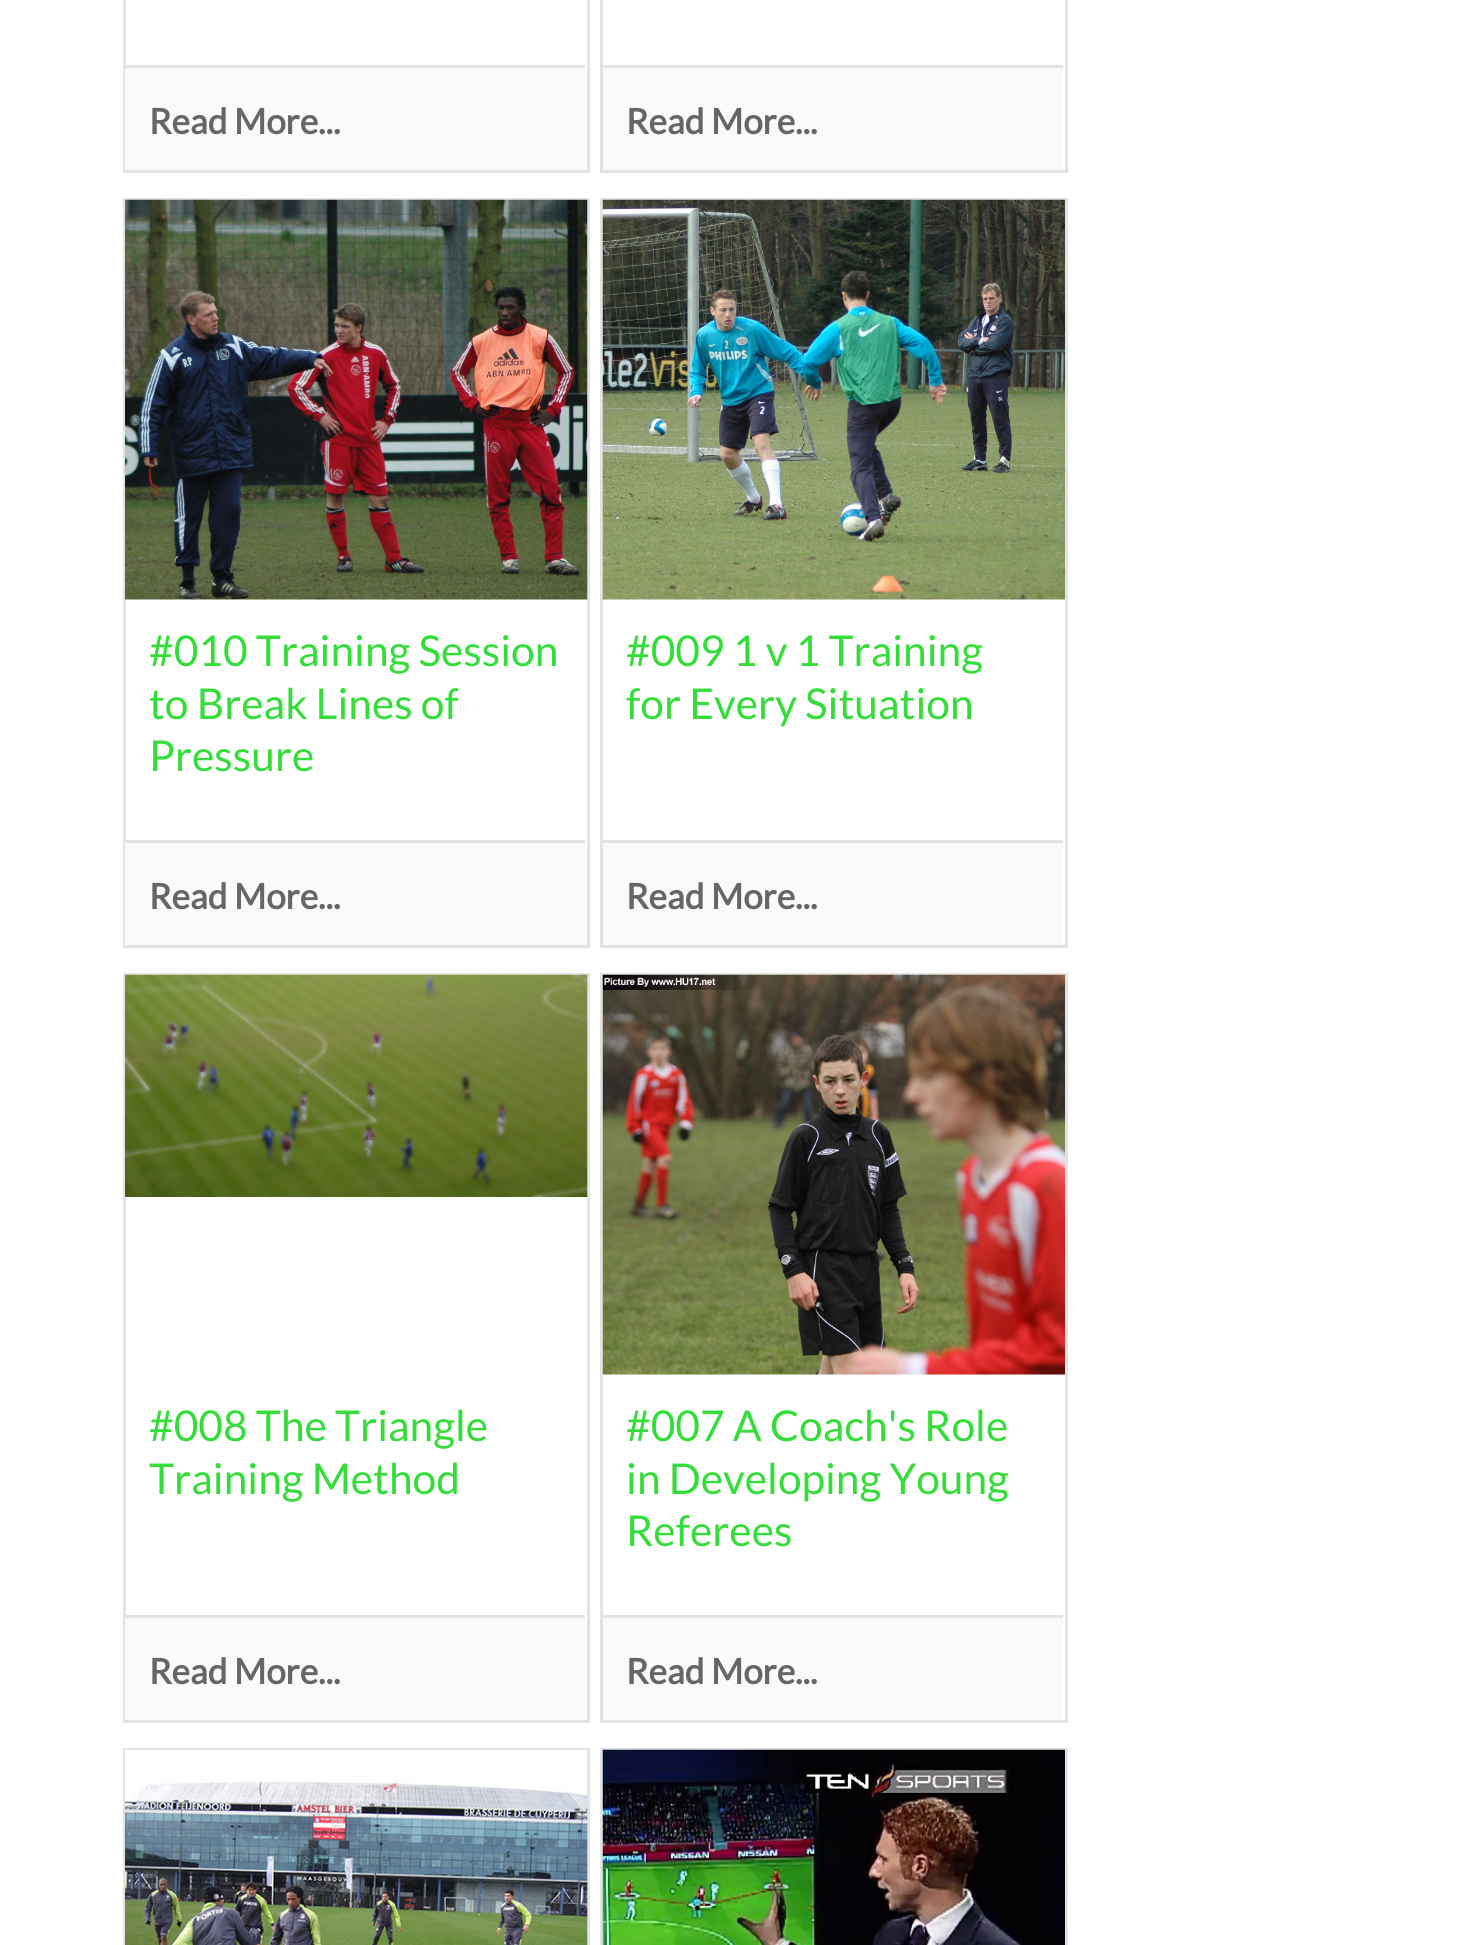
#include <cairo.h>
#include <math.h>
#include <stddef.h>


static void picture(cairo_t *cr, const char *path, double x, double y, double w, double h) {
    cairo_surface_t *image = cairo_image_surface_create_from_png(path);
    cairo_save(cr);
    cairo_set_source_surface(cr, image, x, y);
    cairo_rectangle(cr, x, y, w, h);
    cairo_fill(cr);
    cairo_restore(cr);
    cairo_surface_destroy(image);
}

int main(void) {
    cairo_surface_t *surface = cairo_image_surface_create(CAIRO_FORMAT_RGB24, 1466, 1945);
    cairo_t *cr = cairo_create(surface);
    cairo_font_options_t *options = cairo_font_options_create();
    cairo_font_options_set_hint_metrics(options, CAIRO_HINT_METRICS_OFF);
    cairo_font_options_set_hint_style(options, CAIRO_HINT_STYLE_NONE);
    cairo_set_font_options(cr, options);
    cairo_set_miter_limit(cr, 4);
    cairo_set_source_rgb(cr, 1, 1, 1);
    cairo_paint(cr);
    cairo_rectangle(cr, 124.5, -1.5, 464, 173);
    cairo_set_source_rgb(cr, 0.89, 0.89, 0.89);
    cairo_set_line_width(cr, 3);
    cairo_stroke(cr);
    cairo_set_source_rgb(cr, 0.98, 0.98, 0.98);
    cairo_rectangle(cr, 125, 68, 460, 102);
    cairo_fill(cr);
    cairo_set_source_rgb(cr, 0.89, 0.89, 0.89);
    cairo_rectangle(cr, 125, 65, 460, 3);
    cairo_fill(cr);
    cairo_select_font_face(cr, "Lato", CAIRO_FONT_SLANT_NORMAL, CAIRO_FONT_WEIGHT_BOLD);
    cairo_set_font_size(cr, 35);
    cairo_set_source_rgb(cr, 0.4, 0.4, 0.4);
    cairo_move_to(cr, 149, 134);
    cairo_show_text(cr, "Read More...");
    cairo_rectangle(cr, 601.5, -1.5, 465, 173);
    cairo_set_source_rgb(cr, 0.89, 0.89, 0.89);
    cairo_stroke(cr);
    cairo_set_source_rgb(cr, 0.98, 0.98, 0.98);
    cairo_rectangle(cr, 603, 68, 460, 102);
    cairo_fill(cr);
    cairo_set_source_rgb(cr, 0.89, 0.89, 0.89);
    cairo_rectangle(cr, 603, 65, 460, 3);
    cairo_fill(cr);
    cairo_set_source_rgb(cr, 0.4, 0.4, 0.4);
    cairo_move_to(cr, 626, 134);
    cairo_show_text(cr, "Read More...");
    cairo_rectangle(cr, 124.5, 199.5, 464, 747);
    cairo_set_source_rgb(cr, 0.89, 0.89, 0.89);
    cairo_stroke(cr);
    picture(cr, "img1.png", 125, 199, 463, 401);
    cairo_select_font_face(cr, "Lato", CAIRO_FONT_SLANT_NORMAL, CAIRO_FONT_WEIGHT_NORMAL);
    cairo_set_font_size(cr, 42.5);
    cairo_set_source_rgb(cr, 0.204, 0.867, 0.224);
    cairo_move_to(cr, 149, 666);
    cairo_show_text(cr, "#010 Training Session");
    cairo_move_to(cr, 149, 719);
    cairo_show_text(cr, "to Break Lines of");
    cairo_move_to(cr, 149, 771);
    cairo_show_text(cr, "Pressure");
    cairo_set_source_rgb(cr, 0.98, 0.98, 0.98);
    cairo_rectangle(cr, 125, 843, 460, 102);
    cairo_fill(cr);
    cairo_set_source_rgb(cr, 0.89, 0.89, 0.89);
    cairo_rectangle(cr, 125, 840, 460, 3);
    cairo_fill(cr);
    cairo_select_font_face(cr, "Lato", CAIRO_FONT_SLANT_NORMAL, CAIRO_FONT_WEIGHT_BOLD);
    cairo_set_font_size(cr, 35);
    cairo_set_source_rgb(cr, 0.4, 0.4, 0.4);
    cairo_move_to(cr, 149, 909);
    cairo_show_text(cr, "Read More...");
    cairo_rectangle(cr, 601.5, 199.5, 465, 747);
    cairo_set_source_rgb(cr, 0.89, 0.89, 0.89);
    cairo_stroke(cr);
    picture(cr, "img2.png", 602, 199, 463, 401);
    cairo_select_font_face(cr, "Lato", CAIRO_FONT_SLANT_NORMAL, CAIRO_FONT_WEIGHT_NORMAL);
    cairo_set_font_size(cr, 42.5);
    cairo_set_source_rgb(cr, 0.204, 0.867, 0.224);
    cairo_move_to(cr, 626, 666);
    cairo_show_text(cr, "#009 1 v 1 Training");
    cairo_move_to(cr, 626, 719);
    cairo_show_text(cr, "for Every Situation");
    cairo_set_source_rgb(cr, 0.98, 0.98, 0.98);
    cairo_rectangle(cr, 603, 843, 460, 102);
    cairo_fill(cr);
    cairo_set_source_rgb(cr, 0.89, 0.89, 0.89);
    cairo_rectangle(cr, 603, 840, 460, 3);
    cairo_fill(cr);
    cairo_select_font_face(cr, "Lato", CAIRO_FONT_SLANT_NORMAL, CAIRO_FONT_WEIGHT_BOLD);
    cairo_set_font_size(cr, 35);
    cairo_set_source_rgb(cr, 0.4, 0.4, 0.4);
    cairo_move_to(cr, 626, 909);
    cairo_show_text(cr, "Read More...");
    cairo_rectangle(cr, 124.5, 974.5, 464, 747);
    cairo_set_source_rgb(cr, 0.89, 0.89, 0.89);
    cairo_stroke(cr);
    picture(cr, "img3.png", 125, 974, 463, 223);
    cairo_select_font_face(cr, "Lato", CAIRO_FONT_SLANT_NORMAL, CAIRO_FONT_WEIGHT_NORMAL);
    cairo_set_font_size(cr, 42.5);
    cairo_set_source_rgb(cr, 0.204, 0.867, 0.224);
    cairo_move_to(cr, 149, 1441);
    cairo_show_text(cr, "#008 The Triangle");
    cairo_move_to(cr, 149, 1494);
    cairo_show_text(cr, "Training Method");
    cairo_set_source_rgb(cr, 0.98, 0.98, 0.98);
    cairo_rectangle(cr, 125, 1618, 460, 102);
    cairo_fill(cr);
    cairo_set_source_rgb(cr, 0.89, 0.89, 0.89);
    cairo_rectangle(cr, 125, 1615, 460, 3);
    cairo_fill(cr);
    cairo_select_font_face(cr, "Lato", CAIRO_FONT_SLANT_NORMAL, CAIRO_FONT_WEIGHT_BOLD);
    cairo_set_font_size(cr, 35);
    cairo_set_source_rgb(cr, 0.4, 0.4, 0.4);
    cairo_move_to(cr, 149, 1684);
    cairo_show_text(cr, "Read More...");
    cairo_rectangle(cr, 601.5, 974.5, 465, 747);
    cairo_set_source_rgb(cr, 0.89, 0.89, 0.89);
    cairo_stroke(cr);
    picture(cr, "img4.png", 602, 974, 463, 401);
    cairo_select_font_face(cr, "Lato", CAIRO_FONT_SLANT_NORMAL, CAIRO_FONT_WEIGHT_NORMAL);
    cairo_set_font_size(cr, 42.5);
    cairo_set_source_rgb(cr, 0.204, 0.867, 0.224);
    cairo_move_to(cr, 626, 1441);
    cairo_show_text(cr, "#007 A Coach's Role");
    cairo_move_to(cr, 626, 1494);
    cairo_show_text(cr, "in Developing Young");
    cairo_move_to(cr, 626, 1546);
    cairo_show_text(cr, "Referees");
    cairo_set_source_rgb(cr, 0.98, 0.98, 0.98);
    cairo_rectangle(cr, 603, 1618, 460, 102);
    cairo_fill(cr);
    cairo_set_source_rgb(cr, 0.89, 0.89, 0.89);
    cairo_rectangle(cr, 603, 1615, 460, 3);
    cairo_fill(cr);
    cairo_select_font_face(cr, "Lato", CAIRO_FONT_SLANT_NORMAL, CAIRO_FONT_WEIGHT_BOLD);
    cairo_set_font_size(cr, 35);
    cairo_set_source_rgb(cr, 0.4, 0.4, 0.4);
    cairo_move_to(cr, 626, 1684);
    cairo_show_text(cr, "Read More...");
    cairo_rectangle(cr, 124.5, 1749.5, 464, 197);
    cairo_set_source_rgb(cr, 0.89, 0.89, 0.89);
    cairo_stroke(cr);
    picture(cr, "img5.png", 125, 1749, 463, 196);
    cairo_rectangle(cr, 601.5, 1749.5, 465, 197);
    cairo_stroke(cr);
    picture(cr, "img6.png", 602, 1749, 463, 196);
    cairo_surface_write_to_png(surface, "page.png");
    cairo_font_options_destroy(options);
    cairo_destroy(cr);
    cairo_surface_destroy(surface);
    return 0;
}
